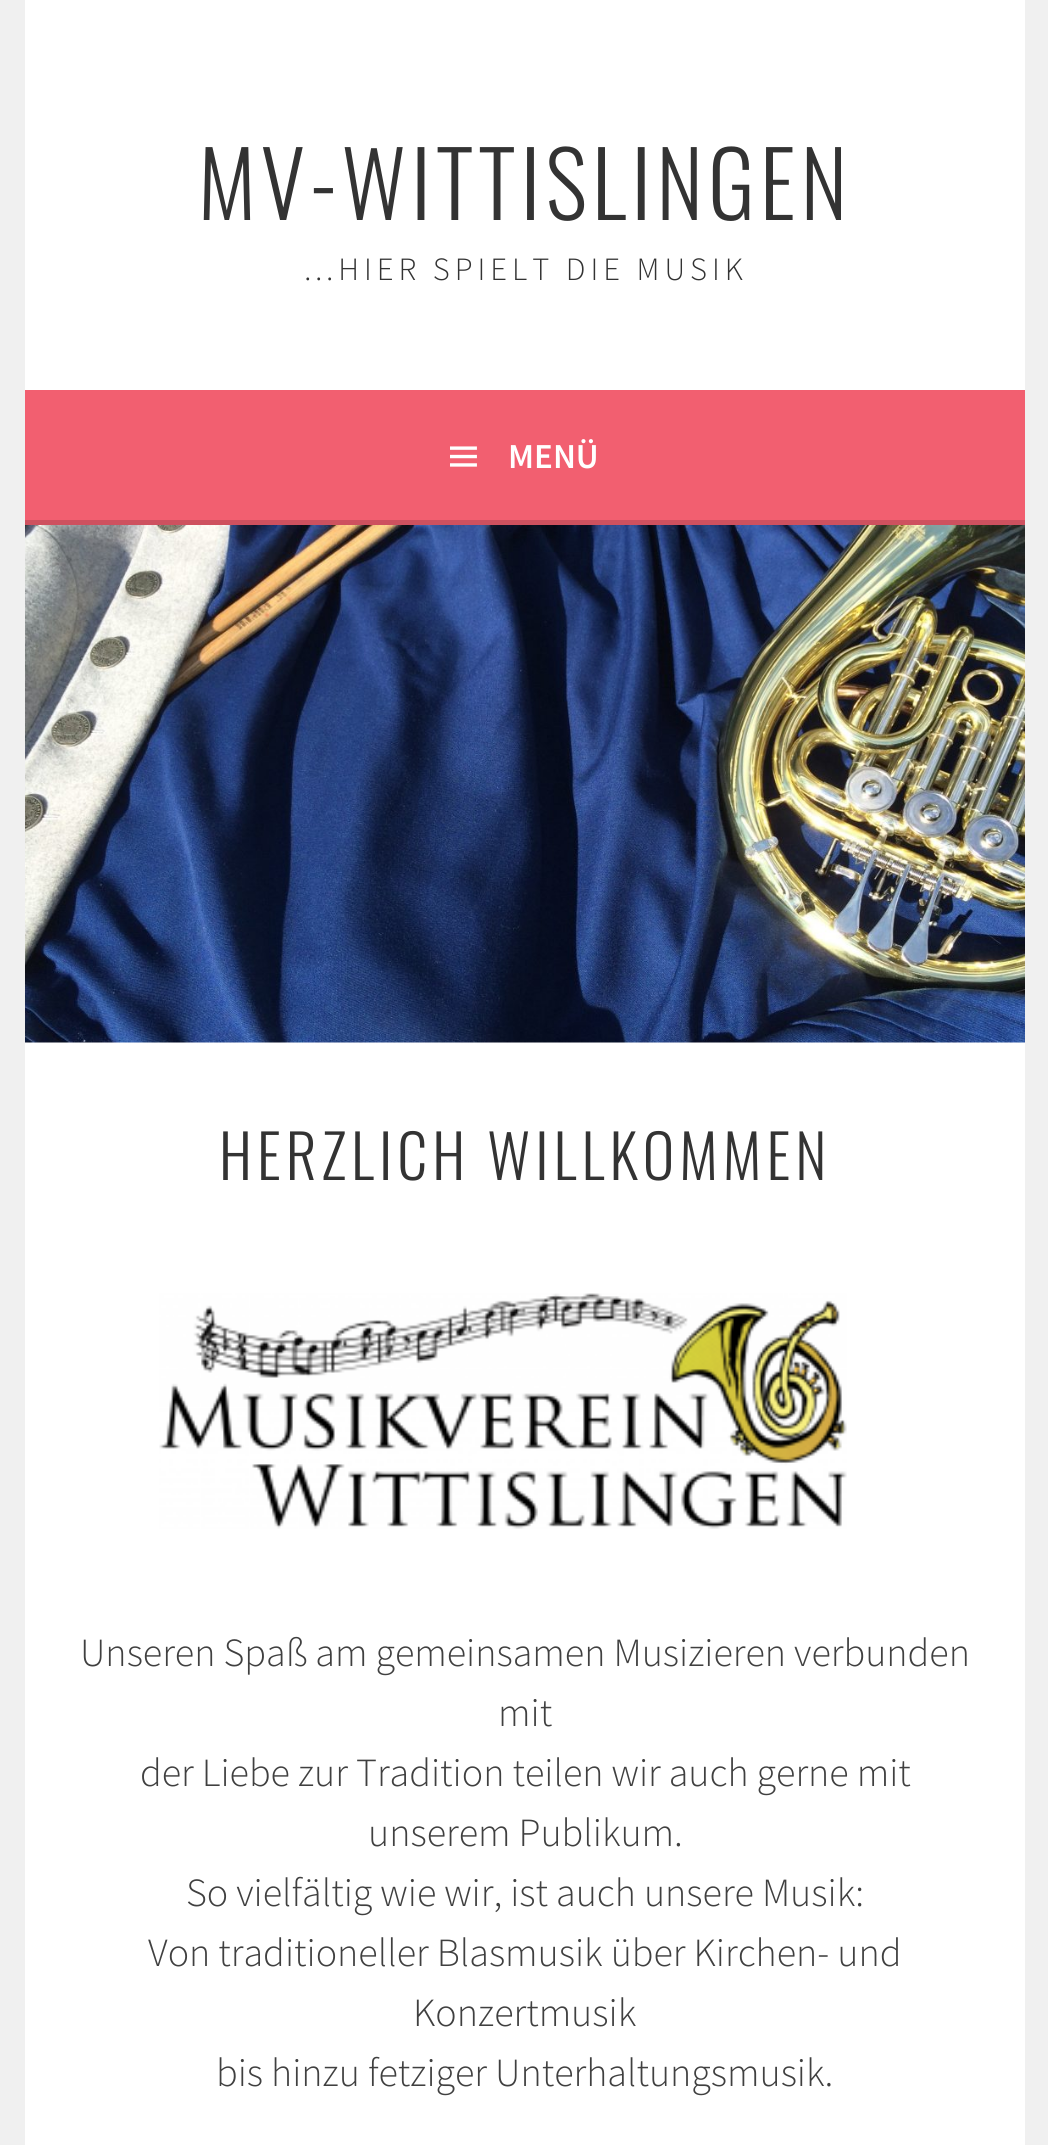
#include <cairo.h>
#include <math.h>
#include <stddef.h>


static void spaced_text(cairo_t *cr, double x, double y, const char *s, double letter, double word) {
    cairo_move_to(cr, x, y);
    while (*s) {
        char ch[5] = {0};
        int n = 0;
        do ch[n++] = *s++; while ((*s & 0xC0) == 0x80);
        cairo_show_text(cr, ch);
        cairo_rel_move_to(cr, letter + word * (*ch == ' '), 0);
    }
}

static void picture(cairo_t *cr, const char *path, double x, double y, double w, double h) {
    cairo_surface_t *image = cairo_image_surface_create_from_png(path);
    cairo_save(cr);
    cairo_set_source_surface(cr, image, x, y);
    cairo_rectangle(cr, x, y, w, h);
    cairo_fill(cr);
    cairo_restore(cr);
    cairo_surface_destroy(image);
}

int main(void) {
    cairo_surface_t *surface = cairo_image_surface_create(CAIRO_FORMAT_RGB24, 1048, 2145);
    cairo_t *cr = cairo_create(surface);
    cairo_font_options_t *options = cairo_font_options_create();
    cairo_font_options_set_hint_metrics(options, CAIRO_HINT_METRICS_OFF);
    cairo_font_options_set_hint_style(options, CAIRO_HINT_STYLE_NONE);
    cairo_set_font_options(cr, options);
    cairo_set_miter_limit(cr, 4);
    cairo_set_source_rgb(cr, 0.941, 0.941, 0.941);
    cairo_paint(cr);
    cairo_set_source_rgb(cr, 1, 1, 1);
    cairo_rectangle(cr, 25, 0, 1000, 390);
    cairo_fill(cr);
    cairo_select_font_face(cr, "Oswald Light", CAIRO_FONT_SLANT_NORMAL, CAIRO_FONT_WEIGHT_NORMAL);
    cairo_set_font_size(cr, 90);
    cairo_set_source_rgb(cr, 0.2, 0.2, 0.2);
    spaced_text(cr, 198, 220, "MV-WITTISLINGEN", 5, 0);
    cairo_select_font_face(cr, "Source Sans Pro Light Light", CAIRO_FONT_SLANT_NORMAL, CAIRO_FONT_WEIGHT_NORMAL);
    cairo_set_font_size(cr, 32.5);
    spaced_text(cr, 303, 280, "…HIER SPIELT DIE MUSIK", 5, 0);
    cairo_set_source_rgb(cr, 0.949, 0.373, 0.439);
    cairo_rectangle(cr, 25, 390, 1000, 130);
    cairo_fill(cr);
    cairo_set_source_rgb(cr, 0.808, 0.318, 0.373);
    cairo_rectangle(cr, 25, 520, 1000, 5);
    cairo_fill(cr);
    picture(cr, "img1.png", 450, 446, 27, 21);
    cairo_select_font_face(cr, "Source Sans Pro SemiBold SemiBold", CAIRO_FONT_SLANT_NORMAL, CAIRO_FONT_WEIGHT_NORMAL);
    cairo_set_font_size(cr, 35);
    cairo_set_source_rgb(cr, 1, 1, 1);
    cairo_move_to(cr, 508, 468);
    cairo_show_text(cr, "MENÜ");
    cairo_rectangle(cr, 25, 1042, 1000, 1103);
    cairo_fill(cr);
    picture(cr, "img2.png", 25, 525, 1000, 518);
    cairo_select_font_face(cr, "Oswald Light", CAIRO_FONT_SLANT_NORMAL, CAIRO_FONT_WEIGHT_NORMAL);
    cairo_set_font_size(cr, 60);
    cairo_set_source_rgb(cr, 0.2, 0.2, 0.2);
    spaced_text(cr, 219, 1180, "HERZLICH WILLKOMMEN", 5, 0);
    picture(cr, "img3.png", 159, 1293, 688, 236);
    cairo_select_font_face(cr, "Source Sans Pro Light Light", CAIRO_FONT_SLANT_NORMAL, CAIRO_FONT_WEIGHT_NORMAL);
    cairo_set_font_size(cr, 40);
    cairo_set_source_rgb(cr, 0.251, 0.251, 0.251);
    cairo_move_to(cr, 80, 1666);
    cairo_show_text(cr, "Unseren Spaß am gemeinsamen Musizieren verbunden");
    cairo_move_to(cr, 498, 1726);
    cairo_show_text(cr, "mit");
    cairo_move_to(cr, 140, 1786);
    cairo_show_text(cr, "der Liebe zur Tradition teilen wir auch gerne mit");
    cairo_move_to(cr, 368, 1846);
    cairo_show_text(cr, "unserem Publikum.");
    cairo_move_to(cr, 186, 1906);
    cairo_show_text(cr, "So vielfältig wie wir, ist auch unsere Musik:");
    cairo_move_to(cr, 148, 1966);
    cairo_show_text(cr, "Von traditioneller Blasmusik über Kirchen- und");
    cairo_move_to(cr, 413, 2026);
    cairo_show_text(cr, "Konzertmusik");
    cairo_move_to(cr, 216, 2086);
    cairo_show_text(cr, "bis hinzu fetziger Unterhaltungsmusik.");
    cairo_surface_write_to_png(surface, "page.png");
    cairo_font_options_destroy(options);
    cairo_destroy(cr);
    cairo_surface_destroy(surface);
    return 0;
}
